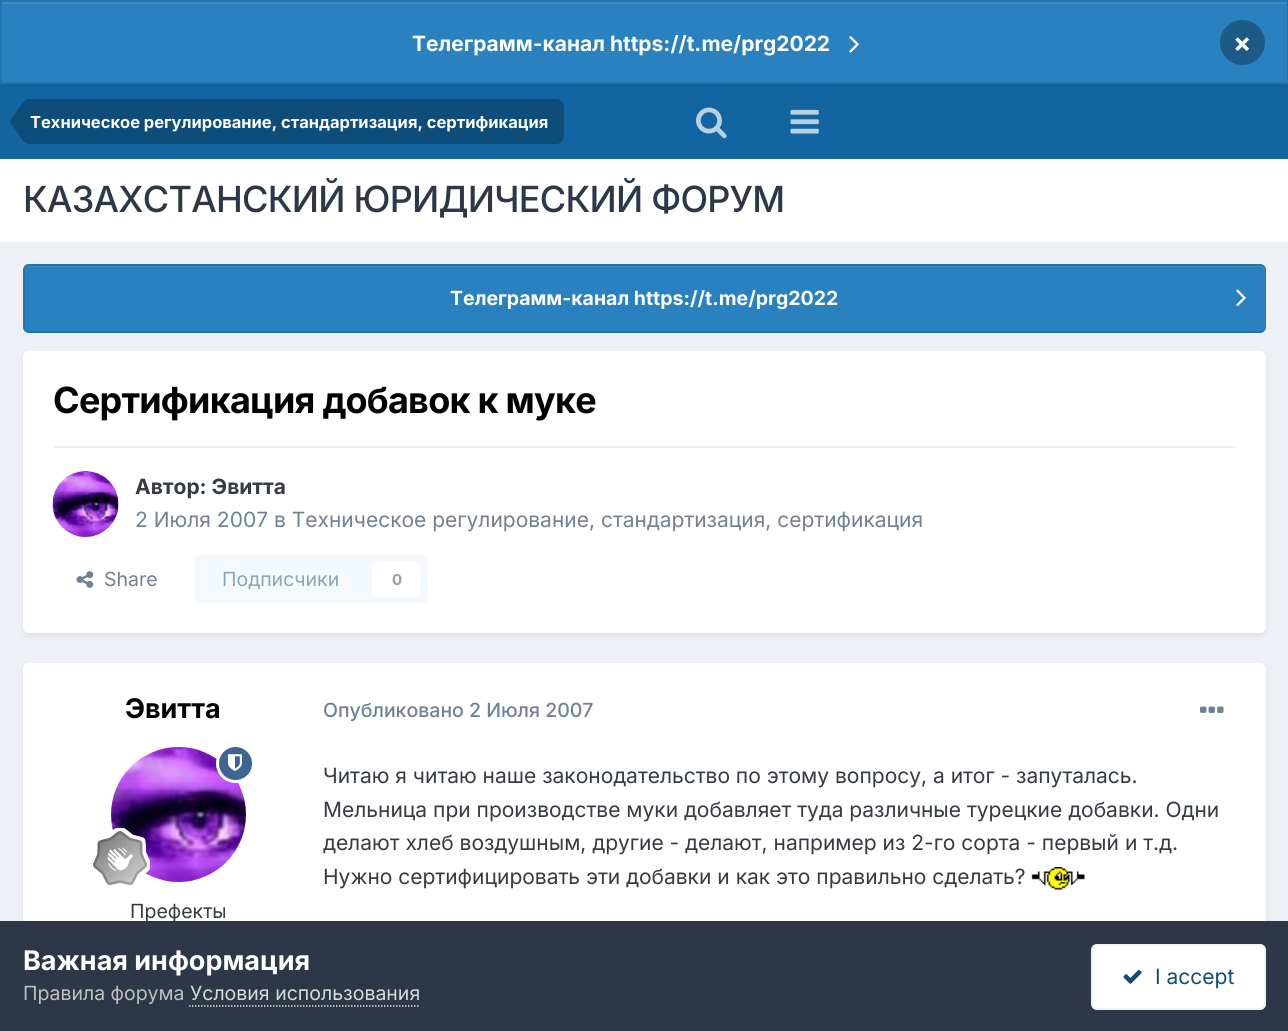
#include <cairo.h>
#include <math.h>
#include <stddef.h>


static void spaced_text(cairo_t *cr, double x, double y, const char *s, double letter, double word) {
    cairo_move_to(cr, x, y);
    while (*s) {
        char ch[5] = {0};
        int n = 0;
        do ch[n++] = *s++; while ((*s & 0xC0) == 0x80);
        cairo_show_text(cr, ch);
        cairo_rel_move_to(cr, letter + word * (*ch == ' '), 0);
    }
}

static void round_rect(cairo_t *cr, double x, double y, double w, double h, double r) {
    cairo_new_sub_path(cr);
    cairo_arc(cr, x + w - r, y + h - r, r, 0, M_PI / 2);
    cairo_arc(cr, x + r, y + h - r, r, M_PI / 2, M_PI);
    cairo_arc(cr, x + r, y + r, r, M_PI, 1.5 * M_PI);
    cairo_arc(cr, x + w - r, y + r, r, 1.5 * M_PI, 2 * M_PI);
    cairo_close_path(cr);
}

static void shadow(cairo_t *cr, double x, double y, double w, double h, double r, double blur, double alpha) {
    cairo_push_group_with_content(cr, CAIRO_CONTENT_ALPHA);
    cairo_set_operator(cr, CAIRO_OPERATOR_SOURCE);
    for (int i = 15; i >= -15 && fmin(w, h) + blur * i / 3 > 0; i -= 2) {
        double e = blur * i / 6;
        cairo_set_source_rgba(cr, 0, 0, 0, alpha * erfc((i - 1) / 8.5) / 2);
        round_rect(cr, x - e, y - e, w + 2 * e, h + 2 * e, fmax(0, fmin(r + e + blur * .6, fmin(w, h) / 2 + e)));
        cairo_fill(cr);
    }
    cairo_pattern_t *soft = cairo_pop_group(cr);
    cairo_mask(cr, soft);
    cairo_pattern_destroy(soft);
}

static void picture(cairo_t *cr, const char *path, double x, double y, double w, double h) {
    cairo_surface_t *image = cairo_image_surface_create_from_png(path);
    cairo_save(cr);
    cairo_set_source_surface(cr, image, x, y);
    cairo_rectangle(cr, x, y, w, h);
    cairo_fill(cr);
    cairo_restore(cr);
    cairo_surface_destroy(image);
}

int main(void) {
    cairo_surface_t *surface = cairo_image_surface_create(CAIRO_FORMAT_RGB24, 1288, 1031);
    cairo_t *cr = cairo_create(surface);
    cairo_font_options_t *options = cairo_font_options_create();
    cairo_font_options_set_hint_metrics(options, CAIRO_HINT_METRICS_OFF);
    cairo_font_options_set_hint_style(options, CAIRO_HINT_STYLE_NONE);
    cairo_set_font_options(cr, options);
    cairo_set_miter_limit(cr, 4);
    cairo_set_source_rgb(cr, 0.929, 0.941, 0.957);
    cairo_paint(cr);
    cairo_set_source_rgb(cr, 0.161, 0.506, 0.749);
    cairo_rectangle(cr, 2, 4, 1285, 78);
    cairo_fill(cr);
    cairo_set_source_rgb(cr, 0.243, 0.557, 0.773);
    cairo_rectangle(cr, 2, 2, 1285, 2);
    cairo_fill(cr);
    cairo_rectangle(cr, 1, 1, 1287, 82);
    cairo_set_source_rgb(cr, 0.145, 0.455, 0.675);
    cairo_stroke(cr);
    cairo_select_font_face(cr, "Inter", CAIRO_FONT_SLANT_NORMAL, CAIRO_FONT_WEIGHT_BOLD);
    cairo_set_font_size(cr, 21);
    cairo_set_source_rgb(cr, 1, 1, 1);
    cairo_move_to(cr, 412, 51);
    cairo_show_text(cr, "Телеграмм-канал https://t.me/prg2022");
    picture(cr, "img1.png", 849, 36, 10, 17);
    cairo_set_source_rgb(cr, 0.114, 0.353, 0.525);
    cairo_arc(cr, 1242.5, 42.5, 22.5, 0, 2 * M_PI);
    cairo_fill(cr);
    cairo_set_font_size(cr, 27);
    cairo_set_source_rgb(cr, 1, 1, 1);
    cairo_move_to(cr, 1233, 52);
    cairo_show_text(cr, "×");
    cairo_set_source_rgb(cr, 0.071, 0.396, 0.631);
    cairo_rectangle(cr, 0, 84, 1288, 75);
    cairo_fill(cr);
    cairo_set_source_rgb(cr, 0.055, 0.298, 0.475);
    cairo_new_path(cr);
    cairo_move_to(cr, 30, 99);
    cairo_line_to(cr, 556, 99);
    cairo_curve_to(cr, 560.5, 99, 564, 102.5, 564, 107);
    cairo_line_to(cr, 564, 136);
    cairo_curve_to(cr, 564, 140.5, 560.5, 144, 556, 144);
    cairo_line_to(cr, 30, 144);
    cairo_close_path(cr);
    cairo_fill(cr);
    cairo_new_path(cr);
    cairo_move_to(cr, 10.5, 123);
    cairo_line_to(cr, 10, 121.5);
    cairo_line_to(cr, 30, 121.5);
    cairo_line_to(cr, 30, 144);
    cairo_curve_to(cr, 27, 144, 23.5, 142, 21, 138);
    cairo_close_path(cr);
    cairo_fill(cr);
    cairo_set_source_rgba(cr, 0, 0, 0, 0.25);
    cairo_new_path(cr);
    cairo_move_to(cr, 30, 99);
    cairo_line_to(cr, 30, 121.5);
    cairo_line_to(cr, 10, 121.5);
    cairo_line_to(cr, 10.5, 120);
    cairo_line_to(cr, 21, 105);
    cairo_curve_to(cr, 23.5, 101, 27, 99, 30, 99);
    cairo_close_path(cr);
    cairo_fill(cr);
    cairo_set_font_size(cr, 16.5);
    cairo_set_source_rgb(cr, 1, 1, 1);
    cairo_move_to(cr, 30, 128);
    cairo_show_text(cr, "Техническое регулирование, стандартизация, сертификация");
    picture(cr, "img2.png", 696, 107, 31, 32);
    picture(cr, "img3.png", 790, 109, 29, 25);
    cairo_rectangle(cr, 0, 159, 1288, 83);
    cairo_fill(cr);
    cairo_select_font_face(cr, "Inter Medium", CAIRO_FONT_SLANT_NORMAL, CAIRO_FONT_WEIGHT_NORMAL);
    cairo_set_font_size(cr, 36);
    cairo_set_source_rgb(cr, 0.176, 0.216, 0.282);
    spaced_text(cr, 23, 212, "КАЗАХСТАНСКИЙ ЮРИДИЧЕСКИЙ ФОРУМ", -0.75, 0);
    cairo_set_source_rgb(cr, 0.161, 0.506, 0.749);
    round_rect(cr, 23, 264, 1243, 69, 6);
    cairo_fill(cr);
    cairo_set_source_rgb(cr, 0.243, 0.557, 0.773);
    cairo_new_path(cr);
    cairo_move_to(cr, 28, 267);
    cairo_line_to(cr, 1260, 267);
    cairo_curve_to(cr, 1262, 267, 1264, 269, 1264, 272);
    cairo_line_to(cr, 1264, 328);
    cairo_line_to(cr, 1263, 331);
    cairo_curve_to(cr, 1264, 330, 1265, 328, 1265, 327);
    cairo_line_to(cr, 1265, 271);
    cairo_curve_to(cr, 1265, 268, 1263, 266, 1260, 266);
    cairo_line_to(cr, 29, 266);
    cairo_curve_to(cr, 26, 266, 24, 268, 24, 271);
    cairo_line_to(cr, 24, 272);
    cairo_curve_to(cr, 24, 269, 26, 267, 28, 267);
    cairo_close_path(cr);
    cairo_fill(cr);
    round_rect(cr, 24, 265, 1241, 67, 5);
    cairo_set_source_rgba(cr, 0, 0, 0, 0.1);
    cairo_stroke(cr);
    cairo_select_font_face(cr, "Inter", CAIRO_FONT_SLANT_NORMAL, CAIRO_FONT_WEIGHT_BOLD);
    cairo_set_font_size(cr, 19.5);
    cairo_set_source_rgb(cr, 1, 1, 1);
    cairo_move_to(cr, 450, 305);
    cairo_show_text(cr, "Телеграмм-канал https://t.me/prg2022");
    picture(cr, "img4.png", 1236, 289, 10, 18);
    cairo_set_source_rgb(cr, 0.176, 0.216, 0.282);
    shadow(cr, 24, 356, 1241, 279, 5, 3, 0.1);
    cairo_set_source_rgb(cr, 1, 1, 1);
    round_rect(cr, 23, 351, 1243, 282, 6);
    cairo_fill(cr);
    cairo_set_font_size(cr, 36);
    cairo_set_source_rgb(cr, 0, 0, 0);
    spaced_text(cr, 53, 413, "Сертификация добавок к муке", -0.75, 0);
    cairo_set_source_rgb(cr, 0.937, 0.937, 0.941);
    cairo_rectangle(cr, 53, 446, 1183, 2);
    cairo_fill(cr);
    picture(cr, "img5.png", 52, 471, 67, 66);
    cairo_set_font_size(cr, 21);
    cairo_set_source_rgb(cr, 0.208, 0.235, 0.255);
    cairo_move_to(cr, 135, 494);
    cairo_show_text(cr, "Автор: Эвитта");
    cairo_select_font_face(cr, "Inter", CAIRO_FONT_SLANT_NORMAL, CAIRO_FONT_WEIGHT_NORMAL);
    cairo_set_source_rgb(cr, 0.443, 0.502, 0.588);
    cairo_move_to(cr, 135, 527);
    cairo_show_text(cr, "2 Июля 2007 в Техническое регулирование, стандартизация, сертификация");
    picture(cr, "img6.png", 76, 571, 18, 17);
    cairo_set_font_size(cr, 19.5);
    cairo_move_to(cr, 104, 586);
    cairo_show_text(cr, "Share");
    cairo_set_source_rgb(cr, 0.957, 0.976, 0.992);
    round_rect(cr, 194, 555, 234, 48, 6);
    cairo_fill(cr);
    cairo_set_source_rgb(cr, 0.529, 0.651, 0.737);
    cairo_move_to(cr, 222, 586);
    cairo_show_text(cr, "Подписчики");
    cairo_set_source_rgb(cr, 1, 1, 1);
    round_rect(cr, 372, 561, 48, 36, 6);
    cairo_fill(cr);
    cairo_select_font_face(cr, "Inter", CAIRO_FONT_SLANT_NORMAL, CAIRO_FONT_WEIGHT_BOLD);
    cairo_set_font_size(cr, 15);
    cairo_set_source_rgb(cr, 0.604, 0.62, 0.627);
    cairo_move_to(cr, 392, 585);
    cairo_show_text(cr, "0");
    cairo_set_source_rgb(cr, 0.176, 0.216, 0.282);
    shadow(cr, 24, 668, 1241, 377, 5, 3, 0.1);
    cairo_set_source_rgb(cr, 1, 1, 1);
    round_rect(cr, 23, 663, 1243, 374, 6);
    cairo_fill(cr);
    cairo_set_font_size(cr, 27);
    cairo_set_source_rgb(cr, 0, 0, 0);
    cairo_move_to(cr, 125, 718);
    cairo_show_text(cr, "Эвитта");
    picture(cr, "img8.png", 111, 747, 135, 135);
    cairo_set_source_rgb(cr, 0.239, 0.396, 0.58);
    cairo_arc(cr, 235.5, 763.5, 18, 0, 2 * M_PI);
    cairo_fill_preserve(cr);
    cairo_set_source_rgb(cr, 1, 1, 1);
    cairo_set_line_width(cr, 3);
    cairo_stroke(cr);
    picture(cr, "img7.png", 228, 754, 14, 17);
    picture(cr, "img9.png", 93, 828, 57, 57);
    cairo_select_font_face(cr, "Inter", CAIRO_FONT_SLANT_NORMAL, CAIRO_FONT_WEIGHT_NORMAL);
    cairo_set_font_size(cr, 19.5);
    cairo_set_source_rgb(cr, 0.208, 0.235, 0.255);
    cairo_move_to(cr, 130, 918);
    cairo_show_text(cr, "Префекты");
    cairo_select_font_face(cr, "Inter Medium", CAIRO_FONT_SLANT_NORMAL, CAIRO_FONT_WEIGHT_NORMAL);
    cairo_set_source_rgb(cr, 0.443, 0.502, 0.588);
    cairo_move_to(cr, 323, 717);
    cairo_show_text(cr, "Опубликовано 2 Июля 2007");
    picture(cr, "img10.png", 1200, 706, 24, 7);
    cairo_select_font_face(cr, "Inter", CAIRO_FONT_SLANT_NORMAL, CAIRO_FONT_WEIGHT_NORMAL);
    cairo_set_font_size(cr, 21);
    cairo_set_source_rgb(cr, 0.208, 0.235, 0.255);
    cairo_move_to(cr, 323, 783);
    cairo_show_text(cr, "Читаю я читаю наше законодательство по этому вопросу, а итог - запуталась.");
    cairo_move_to(cr, 323, 817);
    cairo_show_text(cr, "Мельница при производстве муки добавляет туда различные турецкие добавки. Одни");
    cairo_move_to(cr, 323, 850);
    cairo_show_text(cr, "делают хлеб воздушным, другие - делают, например из 2-го сорта - первый и т.д.");
    cairo_move_to(cr, 323, 884);
    cairo_show_text(cr, "Нужно сертифицировать эти добавки и как это правильно сделать?");
    picture(cr, "img11.png", 1031, 867, 54, 23);
    cairo_set_source_rgb(cr, 0.176, 0.216, 0.282);
    cairo_rectangle(cr, 0, 921, 1288, 110);
    cairo_fill(cr);
    cairo_select_font_face(cr, "Inter", CAIRO_FONT_SLANT_NORMAL, CAIRO_FONT_WEIGHT_BOLD);
    cairo_set_font_size(cr, 27);
    cairo_set_source_rgb(cr, 1, 1, 1);
    cairo_move_to(cr, 23, 970);
    cairo_show_text(cr, "Важная информация");
    cairo_select_font_face(cr, "Inter", CAIRO_FONT_SLANT_NORMAL, CAIRO_FONT_WEIGHT_NORMAL);
    cairo_set_font_size(cr, 19.5);
    cairo_set_source_rgb(cr, 0.753, 0.753, 0.753);
    cairo_move_to(cr, 23, 1000);
    cairo_show_text(cr, "Правила форума");
    cairo_set_source_rgb(cr, 0.855, 0.855, 0.855);
    cairo_move_to(cr, 190, 1000);
    cairo_show_text(cr, "Условия использования");
    cairo_new_path(cr);
    cairo_move_to(cr, 189, 1006);
    cairo_line_to(cr, 420, 1006);
    cairo_set_line_width(cr, 1.5);
    cairo_set_dash(cr, (double[]){1.5, 1.5}, 2, 0);
    cairo_stroke(cr);
    cairo_set_source_rgb(cr, 1, 1, 1);
    round_rect(cr, 1091, 944, 175, 66, 6);
    cairo_fill(cr);
    round_rect(cr, 1092, 945, 173, 64, 5);
    cairo_set_source_rgba(cr, 0.055, 0.298, 0.475, 0.07);
    cairo_set_line_width(cr, 2);
    cairo_set_dash(cr, NULL, 0, 0);
    cairo_stroke(cr);
    picture(cr, "img12.png", 1123, 969, 19, 15);
    cairo_set_font_size(cr, 21);
    cairo_set_source_rgb(cr, 0.055, 0.298, 0.475);
    cairo_move_to(cr, 1155, 984);
    cairo_show_text(cr, "I accept");
    cairo_surface_write_to_png(surface, "page.png");
    cairo_font_options_destroy(options);
    cairo_destroy(cr);
    cairo_surface_destroy(surface);
    return 0;
}
